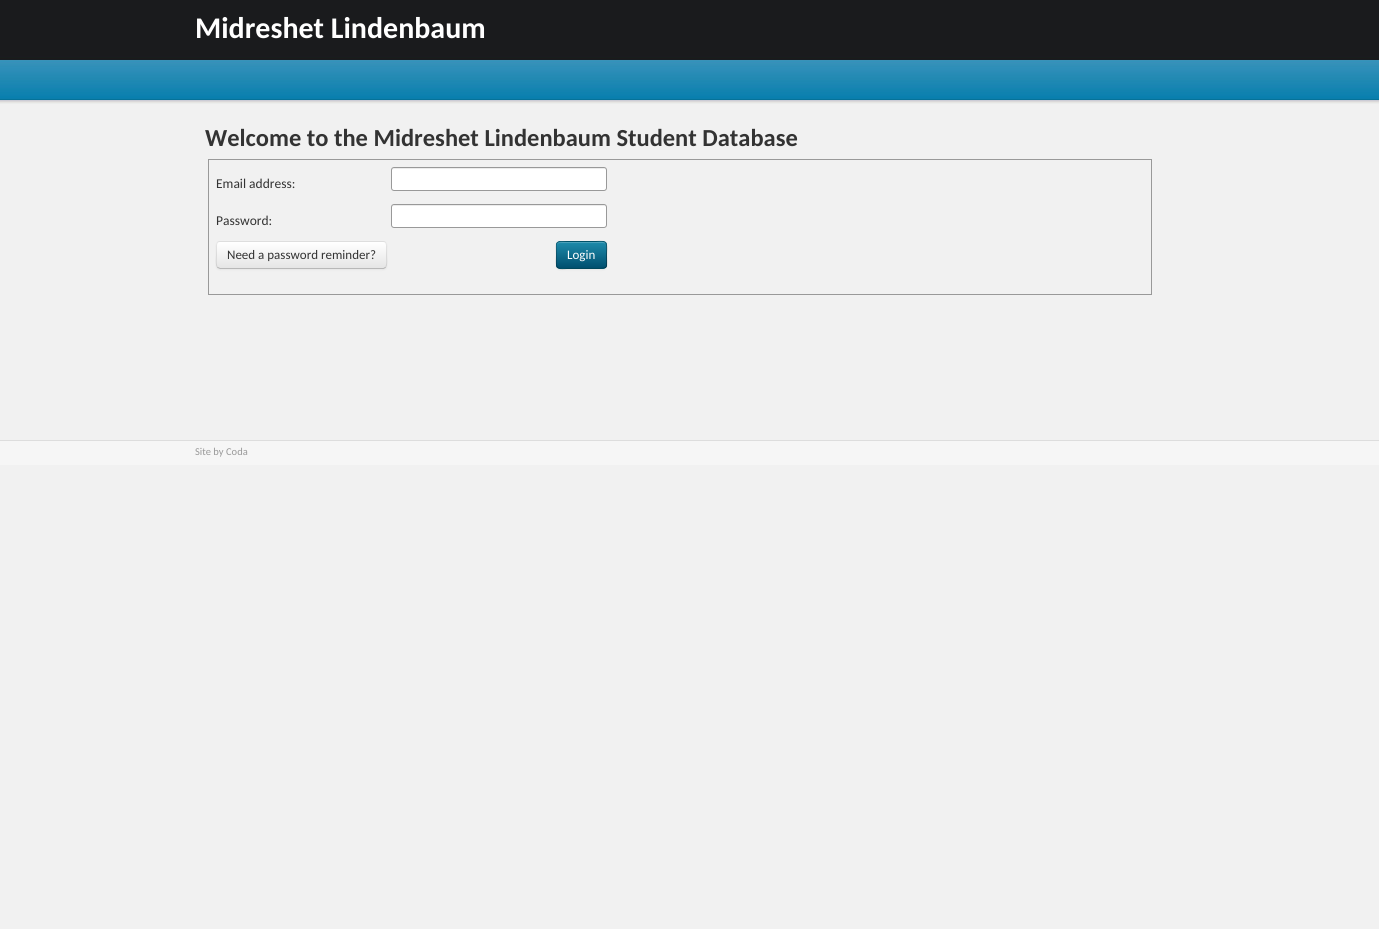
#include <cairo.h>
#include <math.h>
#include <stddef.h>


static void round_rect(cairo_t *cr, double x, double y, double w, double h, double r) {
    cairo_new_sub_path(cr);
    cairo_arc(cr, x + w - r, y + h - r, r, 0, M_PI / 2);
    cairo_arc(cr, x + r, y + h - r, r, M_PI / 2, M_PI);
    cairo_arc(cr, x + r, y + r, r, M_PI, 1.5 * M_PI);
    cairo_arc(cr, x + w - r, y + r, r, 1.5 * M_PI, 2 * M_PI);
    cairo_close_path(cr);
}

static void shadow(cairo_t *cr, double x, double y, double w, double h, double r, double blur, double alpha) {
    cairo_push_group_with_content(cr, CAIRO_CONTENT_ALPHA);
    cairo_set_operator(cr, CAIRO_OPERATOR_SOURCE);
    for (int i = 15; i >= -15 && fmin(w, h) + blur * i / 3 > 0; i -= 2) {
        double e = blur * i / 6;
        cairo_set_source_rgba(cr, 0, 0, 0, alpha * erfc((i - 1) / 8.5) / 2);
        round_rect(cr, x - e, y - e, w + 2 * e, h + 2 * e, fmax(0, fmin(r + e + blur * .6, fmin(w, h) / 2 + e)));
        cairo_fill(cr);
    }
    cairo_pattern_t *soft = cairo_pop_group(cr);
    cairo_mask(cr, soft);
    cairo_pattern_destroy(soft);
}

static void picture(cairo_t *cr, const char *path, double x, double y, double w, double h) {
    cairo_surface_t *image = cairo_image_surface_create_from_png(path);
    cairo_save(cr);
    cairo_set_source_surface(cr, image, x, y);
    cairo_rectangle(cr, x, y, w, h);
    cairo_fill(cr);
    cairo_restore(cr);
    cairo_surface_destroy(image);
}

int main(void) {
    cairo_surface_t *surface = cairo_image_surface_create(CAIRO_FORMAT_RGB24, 1379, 929);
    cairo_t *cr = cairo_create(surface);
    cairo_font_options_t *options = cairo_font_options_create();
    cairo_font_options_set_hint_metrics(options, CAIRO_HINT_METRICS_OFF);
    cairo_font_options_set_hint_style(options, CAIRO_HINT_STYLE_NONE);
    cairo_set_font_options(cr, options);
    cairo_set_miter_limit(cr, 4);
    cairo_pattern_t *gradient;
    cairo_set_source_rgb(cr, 0.945, 0.945, 0.945);
    cairo_paint(cr);
    picture(cr, "img1.png", 0, 0, 1379, 104);
    cairo_select_font_face(cr, "Carlito", CAIRO_FONT_SLANT_NORMAL, CAIRO_FONT_WEIGHT_BOLD);
    cairo_set_font_size(cr, 30);
    cairo_set_source_rgb(cr, 1, 1, 1);
    cairo_move_to(cr, 195, 38);
    cairo_show_text(cr, "Midreshet Lindenbaum");
    cairo_set_font_size(cr, 24.5);
    cairo_set_source_rgb(cr, 0.2, 0.2, 0.2);
    cairo_move_to(cr, 205, 146);
    cairo_show_text(cr, "Welcome to the Midreshet Lindenbaum Student Database");
    cairo_rectangle(cr, 208.5, 159.5, 943, 135);
    cairo_set_source_rgb(cr, 0.6, 0.6, 0.6);
    cairo_set_line_width(cr, 1);
    cairo_stroke(cr);
    cairo_select_font_face(cr, "Carlito", CAIRO_FONT_SLANT_NORMAL, CAIRO_FONT_WEIGHT_NORMAL);
    cairo_set_font_size(cr, 13.5);
    cairo_set_source_rgb(cr, 0.2, 0.2, 0.2);
    cairo_move_to(cr, 216, 188);
    cairo_show_text(cr, "Email address:");
    cairo_set_source_rgb(cr, 1, 1, 1);
    round_rect(cr, 391, 167, 216, 24, 3);
    cairo_fill(cr);
    cairo_set_source_rgb(cr, 0.925, 0.925, 0.925);
    cairo_new_path(cr);
    cairo_move_to(cr, 394, 169);
    cairo_line_to(cr, 605, 169);
    cairo_line_to(cr, 606, 170);
    cairo_curve_to(cr, 606, 169, 605, 168, 604, 168);
    cairo_line_to(cr, 394, 168);
    cairo_curve_to(cr, 393, 168, 392, 169, 392, 170);
    cairo_curve_to(cr, 392, 170, 393, 169, 394, 169);
    cairo_close_path(cr);
    cairo_fill(cr);
    round_rect(cr, 391.5, 167.5, 215, 23, 2.5);
    cairo_set_source_rgb(cr, 0.6, 0.6, 0.6);
    cairo_stroke(cr);
    cairo_set_source_rgb(cr, 0.2, 0.2, 0.2);
    cairo_move_to(cr, 216, 225);
    cairo_show_text(cr, "Password:");
    cairo_set_source_rgb(cr, 1, 1, 1);
    round_rect(cr, 391, 204, 216, 24, 3);
    cairo_fill(cr);
    cairo_set_source_rgb(cr, 0.925, 0.925, 0.925);
    cairo_new_path(cr);
    cairo_move_to(cr, 394, 206);
    cairo_line_to(cr, 605, 206);
    cairo_line_to(cr, 606, 207);
    cairo_curve_to(cr, 606, 206, 605, 205, 604, 205);
    cairo_line_to(cr, 394, 205);
    cairo_curve_to(cr, 393, 205, 392, 206, 392, 207);
    cairo_curve_to(cr, 392, 207, 393, 206, 394, 206);
    cairo_close_path(cr);
    cairo_fill(cr);
    round_rect(cr, 391.5, 204.5, 215, 23, 2.5);
    cairo_set_source_rgb(cr, 0.6, 0.6, 0.6);
    cairo_stroke(cr);
    cairo_set_source_rgb(cr, 0, 0, 0);
    shadow(cr, 216, 242, 171, 28, 4, 1, 0.05);
    cairo_set_source_rgb(cr, 0.961, 0.961, 0.961);
    round_rect(cr, 216, 241, 171, 28, 4);
    cairo_fill(cr);
    cairo_save(cr);
    round_rect(cr, 216, 241, 171, 28, 4);
    cairo_clip(cr);
    gradient = cairo_pattern_create_linear(302, 242, 302, 268);
    cairo_pattern_add_color_stop_rgba(gradient, 0, 1, 1, 1, 1);
    cairo_pattern_add_color_stop_rgba(gradient, 1, 0.902, 0.902, 0.902, 1);
    cairo_set_source(cr, gradient);
    cairo_pattern_destroy(gradient);
    cairo_rectangle(cr, 216, 242, 171, 26);
    cairo_fill(cr);
    cairo_restore(cr);
    cairo_new_path(cr);
    cairo_move_to(cr, 385.5, 267.5);
    cairo_line_to(cr, 383.5, 268.5);
    cairo_line_to(cr, 247, 268.5);
    cairo_line_to(cr, 220, 268.5);
    cairo_line_to(cr, 217.5, 267.5);
    cairo_set_source_rgba(cr, 0, 0, 0, 0.25);
    cairo_stroke(cr);
    cairo_new_path(cr);
    cairo_move_to(cr, 217.5, 267.5);
    cairo_curve_to(cr, 215.5, 265, 216.5, 257.5, 216.5, 255);
    cairo_line_to(cr, 216.5, 248.5);
    cairo_curve_to(cr, 216.5, 245.5, 216, 241.5, 220, 241.5);
    cairo_line_to(cr, 383, 241.5);
    cairo_curve_to(cr, 387, 241.5, 386.5, 245.5, 386.5, 248.5);
    cairo_line_to(cr, 386.5, 255);
    cairo_curve_to(cr, 386.5, 257.5, 387.5, 265, 385.5, 267.5);
    cairo_set_source_rgba(cr, 0, 0, 0, 0.1);
    cairo_stroke(cr);
    cairo_set_font_size(cr, 13);
    cairo_set_source_rgb(cr, 0.2, 0.2, 0.2);
    cairo_move_to(cr, 227, 259);
    cairo_show_text(cr, "Need a password reminder?");
    cairo_set_source_rgb(cr, 0, 0, 0);
    shadow(cr, 556, 242, 51, 28, 4, 1, 0.05);
    cairo_set_source_rgb(cr, 0, 0.427, 0.553);
    round_rect(cr, 556, 241, 51, 28, 4);
    cairo_fill(cr);
    cairo_save(cr);
    round_rect(cr, 556, 241, 51, 28, 4);
    cairo_clip(cr);
    gradient = cairo_pattern_create_linear(582, 242, 582, 268);
    cairo_pattern_add_color_stop_rgba(gradient, 0, 0.118, 0.545, 0.671, 1);
    cairo_pattern_add_color_stop_rgba(gradient, 1, 0, 0.31, 0.435, 1);
    cairo_set_source(cr, gradient);
    cairo_pattern_destroy(gradient);
    cairo_rectangle(cr, 556, 242, 51, 26);
    cairo_fill(cr);
    cairo_restore(cr);
    cairo_set_source_rgb(cr, 0.29, 0.631, 0.733);
    cairo_new_path(cr);
    cairo_move_to(cr, 560, 243);
    cairo_line_to(cr, 603, 243);
    cairo_curve_to(cr, 605, 243, 606, 244, 606, 246);
    cairo_curve_to(cr, 606, 240, 600, 242, 596, 242);
    cairo_line_to(cr, 567, 242);
    cairo_curve_to(cr, 563, 242, 557, 240, 557, 246);
    cairo_curve_to(cr, 557, 244, 558, 243, 560, 243);
    cairo_close_path(cr);
    cairo_fill(cr);
    cairo_new_path(cr);
    cairo_move_to(cr, 605.5, 242.5);
    cairo_curve_to(cr, 607.5, 245, 606.5, 252.5, 606.5, 255);
    cairo_curve_to(cr, 606.5, 268.5, 609, 268.5, 596, 268.5);
    cairo_line_to(cr, 567, 268.5);
    cairo_curve_to(cr, 566, 268.5, 559.5, 269.5, 557.5, 267.5);
    cairo_set_source_rgba(cr, 0, 0, 0, 0.35);
    cairo_stroke(cr);
    cairo_new_path(cr);
    cairo_move_to(cr, 557.5, 267.5);
    cairo_curve_to(cr, 555.5, 265, 556.5, 257.5, 556.5, 255);
    cairo_curve_to(cr, 556.5, 241.5, 554, 241.5, 567, 241.5);
    cairo_line_to(cr, 596, 241.5);
    cairo_curve_to(cr, 597, 241.5, 603.5, 240.5, 605.5, 242.5);
    cairo_set_source_rgba(cr, 0, 0, 0, 0.25);
    cairo_stroke(cr);
    cairo_set_source_rgb(cr, 1, 1, 1);
    cairo_move_to(cr, 567, 259);
    cairo_show_text(cr, "Login");
    cairo_set_source_rgb(cr, 0.961, 0.961, 0.961);
    cairo_rectangle(cr, 0, 441, 1379, 24);
    cairo_fill(cr);
    cairo_set_source_rgb(cr, 0.867, 0.867, 0.867);
    cairo_rectangle(cr, 0, 440, 1379, 1);
    cairo_fill(cr);
    cairo_set_font_size(cr, 10.5);
    cairo_set_source_rgb(cr, 0.6, 0.6, 0.6);
    cairo_move_to(cr, 195, 455);
    cairo_show_text(cr, "Site by Coda");
    cairo_surface_write_to_png(surface, "page.png");
    cairo_font_options_destroy(options);
    cairo_destroy(cr);
    cairo_surface_destroy(surface);
    return 0;
}
